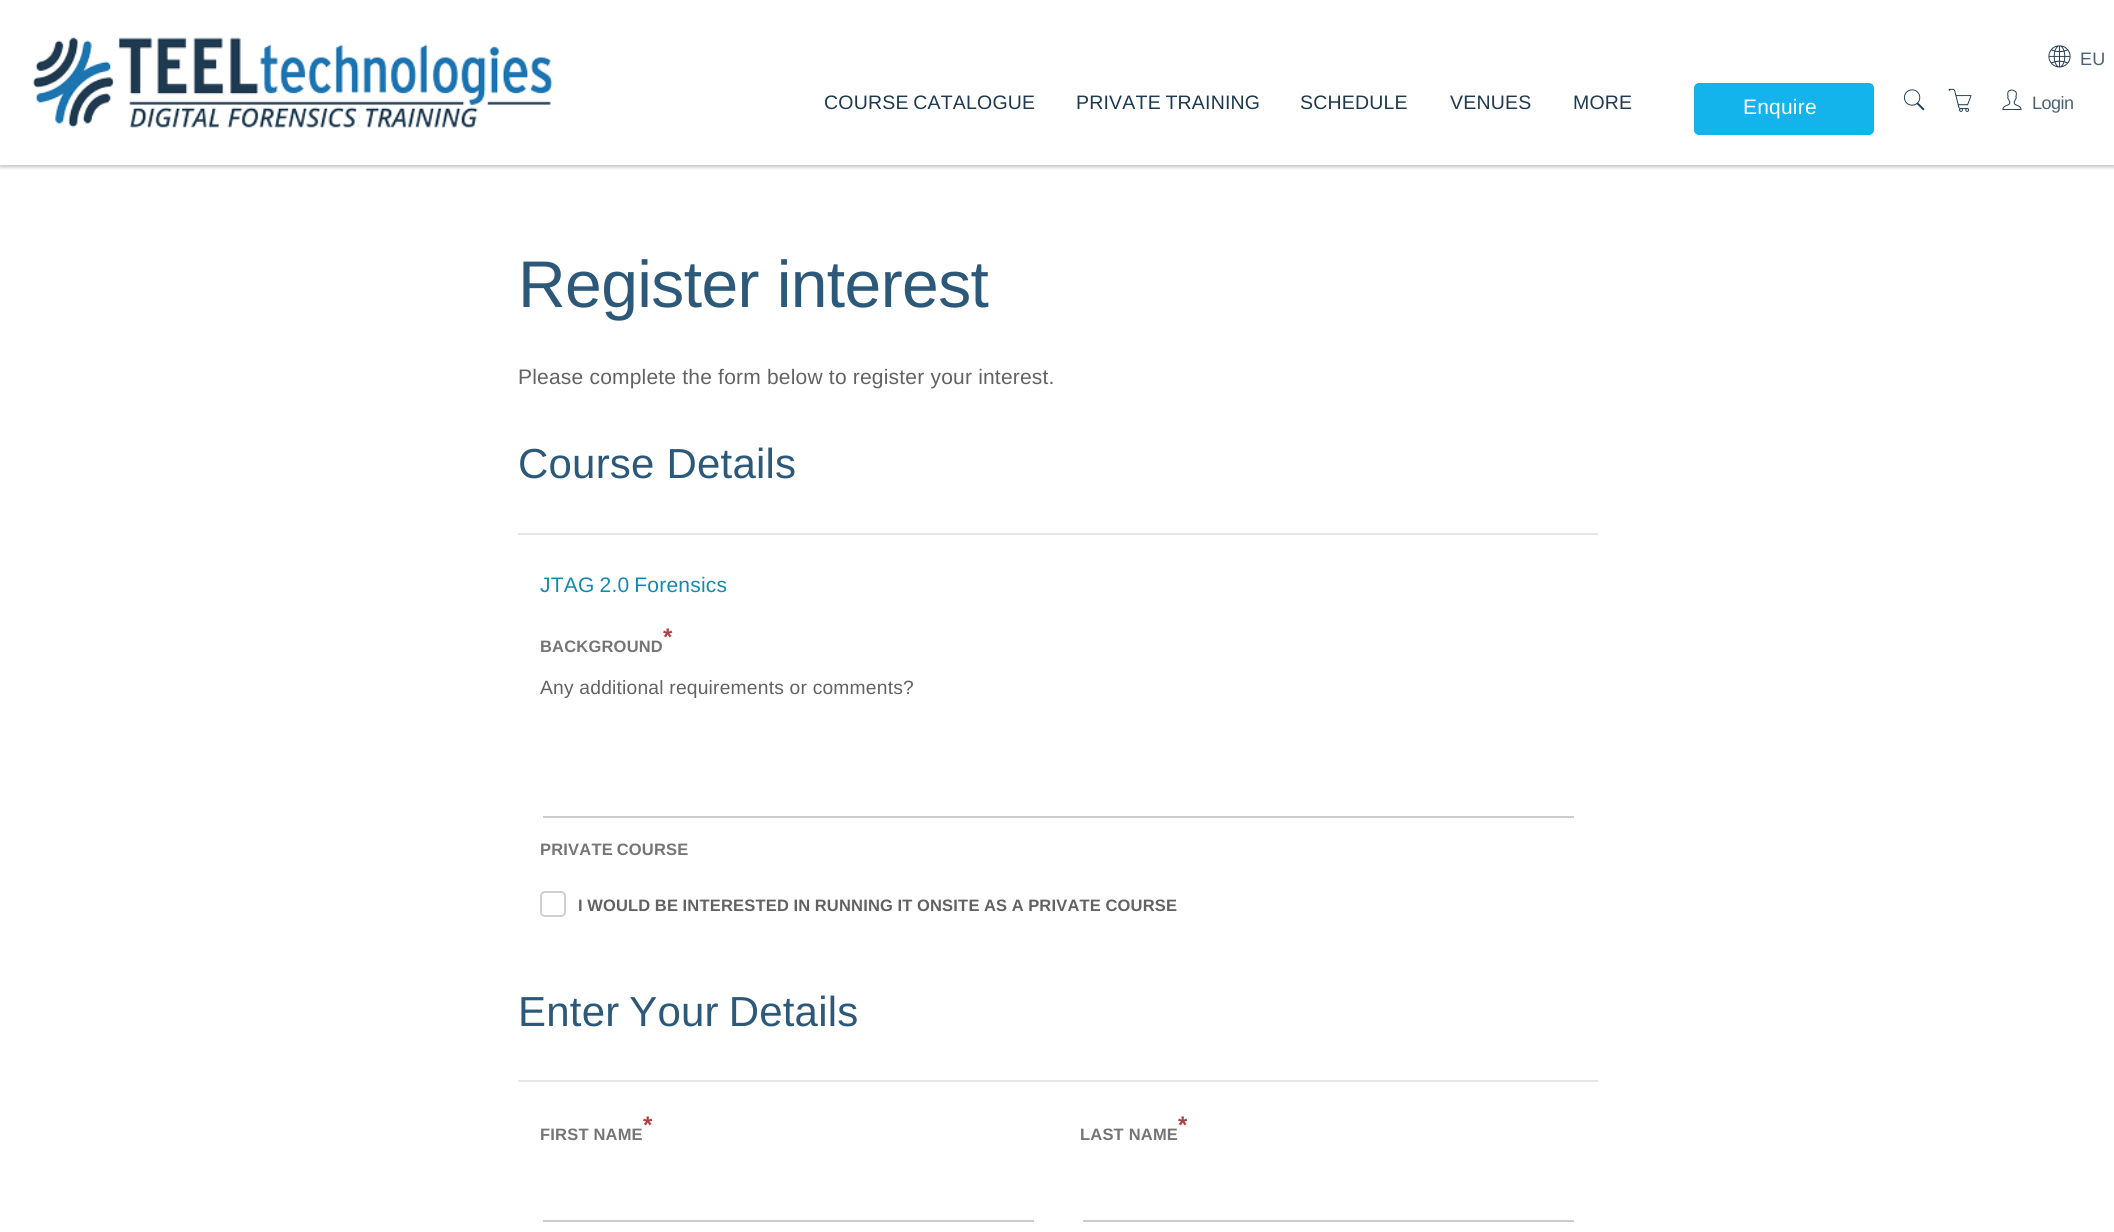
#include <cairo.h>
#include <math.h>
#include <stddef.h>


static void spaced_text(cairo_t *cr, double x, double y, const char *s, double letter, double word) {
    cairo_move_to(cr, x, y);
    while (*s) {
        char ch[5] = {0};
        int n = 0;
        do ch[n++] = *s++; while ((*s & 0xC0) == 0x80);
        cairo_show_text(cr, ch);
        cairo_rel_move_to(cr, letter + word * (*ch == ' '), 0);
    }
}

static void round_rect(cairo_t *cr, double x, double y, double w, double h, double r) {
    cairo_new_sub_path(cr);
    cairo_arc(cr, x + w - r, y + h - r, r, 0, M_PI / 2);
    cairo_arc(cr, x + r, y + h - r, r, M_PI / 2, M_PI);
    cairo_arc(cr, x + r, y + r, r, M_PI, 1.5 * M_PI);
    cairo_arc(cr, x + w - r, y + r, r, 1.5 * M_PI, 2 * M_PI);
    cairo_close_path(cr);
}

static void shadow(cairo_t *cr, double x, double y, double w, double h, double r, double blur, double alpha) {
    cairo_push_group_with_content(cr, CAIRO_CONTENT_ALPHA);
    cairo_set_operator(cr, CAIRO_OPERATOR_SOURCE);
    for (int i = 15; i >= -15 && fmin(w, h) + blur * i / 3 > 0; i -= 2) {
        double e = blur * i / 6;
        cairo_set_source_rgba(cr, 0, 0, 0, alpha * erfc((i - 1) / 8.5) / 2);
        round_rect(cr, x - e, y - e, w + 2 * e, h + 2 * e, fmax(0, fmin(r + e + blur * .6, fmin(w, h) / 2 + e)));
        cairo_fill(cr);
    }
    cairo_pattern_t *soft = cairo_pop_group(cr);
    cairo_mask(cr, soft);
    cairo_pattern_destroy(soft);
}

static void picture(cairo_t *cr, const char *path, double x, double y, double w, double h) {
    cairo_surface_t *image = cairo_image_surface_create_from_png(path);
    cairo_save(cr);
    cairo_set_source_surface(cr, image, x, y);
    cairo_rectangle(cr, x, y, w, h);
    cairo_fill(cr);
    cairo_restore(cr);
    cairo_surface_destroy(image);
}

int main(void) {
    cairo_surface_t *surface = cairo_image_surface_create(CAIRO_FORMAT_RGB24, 2114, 1232);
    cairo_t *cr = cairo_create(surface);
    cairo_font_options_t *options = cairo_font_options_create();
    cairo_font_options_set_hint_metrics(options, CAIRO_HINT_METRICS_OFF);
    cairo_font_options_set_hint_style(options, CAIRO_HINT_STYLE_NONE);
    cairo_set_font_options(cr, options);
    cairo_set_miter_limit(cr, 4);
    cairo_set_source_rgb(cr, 1, 1, 1);
    cairo_paint(cr);
    cairo_save(cr);
    cairo_rectangle(cr, 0, 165, 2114, 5);
    cairo_clip(cr);
    cairo_set_source_rgb(cr, 0, 0, 0);
    shadow(cr, 0, 2, 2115, 165, 0, 2, 0.25);
    cairo_restore(cr);
    picture(cr, "img1.png", 32, 37, 521, 91);
    cairo_select_font_face(cr, "Liberation Sans", CAIRO_FONT_SLANT_NORMAL, CAIRO_FONT_WEIGHT_NORMAL);
    cairo_set_font_size(cr, 19.5);
    cairo_set_source_rgb(cr, 0.118, 0.224, 0.314);
    spaced_text(cr, 824, 109, "COURSE CATALOGUE", 0.2, -1);
    spaced_text(cr, 1076, 109, "PRIVATE TRAINING", 0.2, -1);
    spaced_text(cr, 1300, 109, "SCHEDULE", 0.2, 0);
    spaced_text(cr, 1450, 109, "VENUES", 0.2, 0);
    spaced_text(cr, 1573, 109, "MORE", 0.2, 0);
    cairo_set_source_rgb(cr, 0.075, 0.706, 0.918);
    round_rect(cr, 1695, 84, 178, 50, 4);
    cairo_fill_preserve(cr);
    cairo_stroke(cr);
    cairo_set_font_size(cr, 21);
    cairo_set_source_rgb(cr, 1, 1, 1);
    spaced_text(cr, 1743, 114, "Enquire", 0.2, 0);
    picture(cr, "img2.png", 1903, 89, 22, 22);
    picture(cr, "img3.png", 1948, 88, 24, 24);
    picture(cr, "img4.png", 2048, 45, 23, 23);
    cairo_set_font_size(cr, 18);
    cairo_set_source_rgb(cr, 0.294, 0.38, 0.451);
    spaced_text(cr, 2080, 65, "EU", 0.2, 0);
    picture(cr, "img5.png", 2002, 89, 20, 21);
    spaced_text(cr, 2032, 109, "Login", -0.5, 0);
    cairo_set_font_size(cr, 66);
    cairo_set_source_rgb(cr, 0.173, 0.345, 0.475);
    spaced_text(cr, 518, 307, "Register interest", -0.6, 0);
    cairo_set_font_size(cr, 21);
    cairo_set_source_rgb(cr, 0.384, 0.384, 0.384);
    spaced_text(cr, 518, 384, "Please complete the form below to register your interest.", 0.2, 0);
    cairo_set_font_size(cr, 42);
    cairo_set_source_rgb(cr, 0.173, 0.345, 0.475);
    spaced_text(cr, 518, 478, "Course Details", 0.2, 0);
    cairo_set_source_rgb(cr, 0.902, 0.902, 0.902);
    cairo_rectangle(cr, 518, 533, 1080, 2);
    cairo_fill(cr);
    cairo_set_font_size(cr, 21);
    cairo_set_source_rgb(cr, 0.071, 0.537, 0.694);
    spaced_text(cr, 540, 592, "JTAG 2.0 Forensics", 0.2, -1);
    cairo_select_font_face(cr, "Liberation Sans", CAIRO_FONT_SLANT_NORMAL, CAIRO_FONT_WEIGHT_BOLD);
    cairo_set_font_size(cr, 24);
    cairo_set_source_rgb(cr, 0.663, 0.267, 0.259);
    spaced_text(cr, 663, 645, "*", 0.2, 0);
    cairo_set_font_size(cr, 16.5);
    cairo_set_source_rgb(cr, 0.459, 0.459, 0.459);
    spaced_text(cr, 540, 652, "BACKGROUND", 0.2, 0);
    cairo_select_font_face(cr, "Liberation Sans", CAIRO_FONT_SLANT_NORMAL, CAIRO_FONT_WEIGHT_NORMAL);
    cairo_set_font_size(cr, 19.25);
    cairo_set_source_rgb(cr, 0.384, 0.384, 0.384);
    spaced_text(cr, 540, 694, "Any additional requirements or comments?", 0.2, 0);
    cairo_set_source_rgb(cr, 0.8, 0.8, 0.8);
    cairo_rectangle(cr, 543, 816, 1031, 2);
    cairo_fill(cr);
    cairo_select_font_face(cr, "Liberation Sans", CAIRO_FONT_SLANT_NORMAL, CAIRO_FONT_WEIGHT_BOLD);
    cairo_set_font_size(cr, 16.5);
    cairo_set_source_rgb(cr, 0.459, 0.459, 0.459);
    spaced_text(cr, 540, 855, "PRIVATE COURSE", 0.2, -1);
    round_rect(cr, 541, 892, 24, 24, 4);
    cairo_set_source_rgb(cr, 0.816, 0.816, 0.816);
    cairo_stroke(cr);
    cairo_set_source_rgb(cr, 0.384, 0.384, 0.384);
    spaced_text(cr, 578, 911, "I WOULD BE INTERESTED IN RUNNING IT ONSITE AS A PRIVATE COURSE", 0.2, -0.4);
    cairo_select_font_face(cr, "Liberation Sans", CAIRO_FONT_SLANT_NORMAL, CAIRO_FONT_WEIGHT_NORMAL);
    cairo_set_font_size(cr, 42);
    cairo_set_source_rgb(cr, 0.173, 0.345, 0.475);
    spaced_text(cr, 518, 1026, "Enter Your Details", 0.2, -2);
    cairo_set_source_rgb(cr, 0.902, 0.902, 0.902);
    cairo_rectangle(cr, 518, 1080, 1080, 2);
    cairo_fill(cr);
    cairo_select_font_face(cr, "Liberation Sans", CAIRO_FONT_SLANT_NORMAL, CAIRO_FONT_WEIGHT_BOLD);
    cairo_set_font_size(cr, 24);
    cairo_set_source_rgb(cr, 0.663, 0.267, 0.259);
    spaced_text(cr, 643, 1133, "*", 0.2, 0);
    cairo_set_font_size(cr, 16.5);
    cairo_set_source_rgb(cr, 0.459, 0.459, 0.459);
    spaced_text(cr, 540, 1140, "FIRST NAME", 0.2, 0);
    cairo_set_source_rgb(cr, 0.8, 0.8, 0.8);
    cairo_rectangle(cr, 543, 1220, 491, 2);
    cairo_fill(cr);
    cairo_set_font_size(cr, 24);
    cairo_set_source_rgb(cr, 0.663, 0.267, 0.259);
    spaced_text(cr, 1178, 1133, "*", 0.2, 0);
    cairo_set_font_size(cr, 16.5);
    cairo_set_source_rgb(cr, 0.459, 0.459, 0.459);
    spaced_text(cr, 1080, 1140, "LAST NAME", 0.2, 0);
    cairo_set_source_rgb(cr, 0.8, 0.8, 0.8);
    cairo_rectangle(cr, 1083, 1220, 491, 2);
    cairo_fill(cr);
    cairo_surface_write_to_png(surface, "page.png");
    cairo_font_options_destroy(options);
    cairo_destroy(cr);
    cairo_surface_destroy(surface);
    return 0;
}
